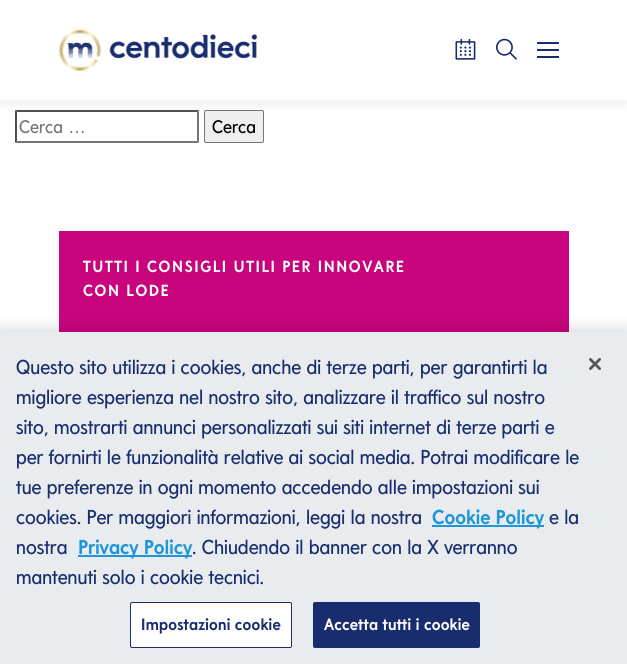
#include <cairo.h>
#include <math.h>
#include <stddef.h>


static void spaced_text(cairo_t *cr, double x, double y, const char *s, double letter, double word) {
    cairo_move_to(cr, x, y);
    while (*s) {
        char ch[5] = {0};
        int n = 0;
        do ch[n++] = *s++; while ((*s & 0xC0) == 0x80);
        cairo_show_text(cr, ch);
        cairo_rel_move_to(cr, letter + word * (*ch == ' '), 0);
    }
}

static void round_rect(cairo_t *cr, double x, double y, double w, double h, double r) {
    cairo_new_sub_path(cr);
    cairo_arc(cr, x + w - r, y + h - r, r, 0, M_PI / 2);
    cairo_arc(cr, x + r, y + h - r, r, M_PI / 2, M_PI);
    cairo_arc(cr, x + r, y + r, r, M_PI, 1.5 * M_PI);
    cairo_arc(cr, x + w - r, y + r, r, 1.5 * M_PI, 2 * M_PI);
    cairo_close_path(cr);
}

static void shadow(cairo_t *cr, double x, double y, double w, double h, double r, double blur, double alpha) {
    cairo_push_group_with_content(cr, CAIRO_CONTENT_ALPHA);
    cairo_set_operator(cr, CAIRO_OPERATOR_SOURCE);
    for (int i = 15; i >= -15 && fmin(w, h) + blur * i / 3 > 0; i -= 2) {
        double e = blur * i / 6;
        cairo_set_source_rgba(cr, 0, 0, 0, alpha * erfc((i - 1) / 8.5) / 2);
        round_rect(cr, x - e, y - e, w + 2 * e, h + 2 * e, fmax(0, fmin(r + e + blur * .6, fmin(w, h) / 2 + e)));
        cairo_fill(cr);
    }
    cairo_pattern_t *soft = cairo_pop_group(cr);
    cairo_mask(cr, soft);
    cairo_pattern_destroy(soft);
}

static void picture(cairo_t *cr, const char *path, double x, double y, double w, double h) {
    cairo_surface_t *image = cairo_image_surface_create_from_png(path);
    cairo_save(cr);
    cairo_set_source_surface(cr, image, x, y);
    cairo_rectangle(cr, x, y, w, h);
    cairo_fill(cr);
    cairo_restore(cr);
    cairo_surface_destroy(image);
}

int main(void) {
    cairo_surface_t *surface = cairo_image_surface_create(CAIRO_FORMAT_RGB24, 627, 664);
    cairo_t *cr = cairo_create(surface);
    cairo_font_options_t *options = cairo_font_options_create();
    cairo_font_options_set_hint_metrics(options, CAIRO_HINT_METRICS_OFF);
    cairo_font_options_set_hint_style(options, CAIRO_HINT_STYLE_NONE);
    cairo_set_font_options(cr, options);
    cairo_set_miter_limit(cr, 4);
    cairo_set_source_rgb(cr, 1, 1, 1);
    cairo_paint(cr);
    cairo_set_source_rgb(cr, 0.31, 0.31, 0.31);
    cairo_new_path(cr);
    cairo_move_to(cr, 15, 110);
    cairo_line_to(cr, 199, 110);
    cairo_line_to(cr, 197, 112);
    cairo_line_to(cr, 17, 112);
    cairo_close_path(cr);
    cairo_fill(cr);
    cairo_set_source_rgb(cr, 0.463, 0.463, 0.463);
    cairo_new_path(cr);
    cairo_move_to(cr, 199, 110);
    cairo_line_to(cr, 199, 143);
    cairo_line_to(cr, 197, 141);
    cairo_line_to(cr, 197, 112);
    cairo_close_path(cr);
    cairo_fill(cr);
    cairo_new_path(cr);
    cairo_move_to(cr, 199, 143);
    cairo_line_to(cr, 15, 143);
    cairo_line_to(cr, 17, 141);
    cairo_line_to(cr, 197, 141);
    cairo_close_path(cr);
    cairo_fill(cr);
    cairo_set_source_rgb(cr, 0.31, 0.31, 0.31);
    cairo_new_path(cr);
    cairo_move_to(cr, 15, 143);
    cairo_line_to(cr, 15, 110);
    cairo_line_to(cr, 17, 112);
    cairo_line_to(cr, 17, 141);
    cairo_close_path(cr);
    cairo_fill(cr);
    cairo_set_source_rgb(cr, 0.937, 0.937, 0.937);
    round_rect(cr, 204.5, 110.5, 59, 32, 1.5);
    cairo_fill_preserve(cr);
    cairo_set_source_rgb(cr, 0.463, 0.463, 0.463);
    cairo_set_line_width(cr, 1);
    cairo_stroke(cr);
    cairo_set_source_rgb(cr, 0.373, 0.412, 0.431);
    shadow(cr, 0, 5, 627, 100, 0, 5, 0.1);
    cairo_set_source_rgb(cr, 1, 1, 1);
    cairo_rectangle(cr, 0, 0, 627, 100);
    cairo_fill(cr);
    picture(cr, "img1.png", 58, 29, 199, 42);
    picture(cr, "img2.png", 455, 38, 21, 22);
    picture(cr, "img3.png", 495, 38, 22, 22);
    cairo_set_source_rgb(cr, 0.098, 0.176, 0.431);
    cairo_rectangle(cr, 537, 42, 22, 2);
    cairo_fill(cr);
    cairo_rectangle(cr, 537, 49, 22, 2);
    cairo_fill(cr);
    cairo_rectangle(cr, 537, 56, 22, 2);
    cairo_fill(cr);
    cairo_select_font_face(cr, "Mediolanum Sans", CAIRO_FONT_SLANT_NORMAL, CAIRO_FONT_WEIGHT_NORMAL);
    cairo_set_font_size(cr, 18);
    cairo_set_source_rgb(cr, 0.459, 0.459, 0.459);
    cairo_move_to(cr, 19, 133);
    cairo_show_text(cr, "Cerca");
    cairo_select_font_face(cr, "Liberation Sans", CAIRO_FONT_SLANT_NORMAL, CAIRO_FONT_WEIGHT_NORMAL);
    cairo_move_to(cr, 68, 133);
    cairo_show_text(cr, "…");
    cairo_select_font_face(cr, "Mediolanum Sans", CAIRO_FONT_SLANT_NORMAL, CAIRO_FONT_WEIGHT_NORMAL);
    cairo_set_source_rgb(cr, 0, 0, 0);
    cairo_move_to(cr, 212, 133);
    cairo_show_text(cr, "Cerca");
    cairo_set_source_rgb(cr, 0.784, 0.02, 0.49);
    cairo_rectangle(cr, 59, 231, 510, 101);
    cairo_fill(cr);
    cairo_select_font_face(cr, "Mediolanum Sans", CAIRO_FONT_SLANT_NORMAL, CAIRO_FONT_WEIGHT_BOLD);
    cairo_set_font_size(cr, 16);
    cairo_set_source_rgb(cr, 1, 1, 1);
    spaced_text(cr, 83, 272, "TUTTI I CONSIGLI UTILI PER INNOVARE", 1.6, 0);
    spaced_text(cr, 83, 296, "CON LODE", 1.6, 0);
    cairo_set_source_rgb(cr, 0, 0, 0);
    shadow(cr, 0, 332, 627, 332, 0, 9, 0.2);
    cairo_set_source_rgb(cr, 0.91, 0.922, 0.933);
    cairo_rectangle(cr, 0, 332, 627, 332);
    cairo_fill(cr);
    cairo_select_font_face(cr, "Mediolanum Sans", CAIRO_FONT_SLANT_NORMAL, CAIRO_FONT_WEIGHT_NORMAL);
    cairo_set_font_size(cr, 20);
    cairo_set_source_rgb(cr, 0.098, 0.176, 0.431);
    cairo_move_to(cr, 16, 374);
    cairo_show_text(cr, "Questo sito utilizza i cookies, anche di terze parti, per garantirti la");
    cairo_move_to(cr, 16, 404);
    cairo_show_text(cr, "migliore esperienza nel nostro sito, analizzare il traffico sul nostro");
    cairo_move_to(cr, 16, 434);
    cairo_show_text(cr, "sito, mostrarti annunci personalizzati sui siti internet di terze parti e");
    cairo_move_to(cr, 16, 464);
    cairo_show_text(cr, "per fornirti le funzionalità relative ai social media. Potrai modificare le");
    cairo_move_to(cr, 16, 494);
    cairo_show_text(cr, "tue preferenze in ogni momento accedendo alle impostazioni sui");
    cairo_move_to(cr, 16, 524);
    cairo_show_text(cr, "cookies. Per maggiori informazioni, leggi la nostra");
    cairo_set_source_rgb(cr, 0.118, 0.588, 0.843);
    cairo_rectangle(cr, 432, 525, 112, 2);
    cairo_fill(cr);
    cairo_select_font_face(cr, "Mediolanum Sans", CAIRO_FONT_SLANT_NORMAL, CAIRO_FONT_WEIGHT_BOLD);
    cairo_move_to(cr, 432, 524);
    cairo_show_text(cr, "Cookie Policy");
    cairo_select_font_face(cr, "Mediolanum Sans", CAIRO_FONT_SLANT_NORMAL, CAIRO_FONT_WEIGHT_NORMAL);
    cairo_set_source_rgb(cr, 0.098, 0.176, 0.431);
    cairo_move_to(cr, 549, 524);
    cairo_show_text(cr, "e la");
    cairo_move_to(cr, 16, 554);
    cairo_show_text(cr, "nostra");
    cairo_set_source_rgb(cr, 0.118, 0.588, 0.843);
    cairo_rectangle(cr, 78, 555, 114, 2);
    cairo_fill(cr);
    cairo_select_font_face(cr, "Mediolanum Sans", CAIRO_FONT_SLANT_NORMAL, CAIRO_FONT_WEIGHT_BOLD);
    cairo_move_to(cr, 78, 554);
    cairo_show_text(cr, "Privacy Policy");
    cairo_select_font_face(cr, "Mediolanum Sans", CAIRO_FONT_SLANT_NORMAL, CAIRO_FONT_WEIGHT_NORMAL);
    cairo_set_source_rgb(cr, 0.098, 0.176, 0.431);
    cairo_move_to(cr, 192, 554);
    cairo_show_text(cr, ". Chiudendo il banner con la X verranno");
    cairo_move_to(cr, 16, 584);
    cairo_show_text(cr, "mantenuti solo i cookie tecnici.");
    cairo_set_source_rgb(cr, 1, 1, 1);
    round_rect(cr, 130.5, 602.5, 161, 45, 1.5);
    cairo_fill_preserve(cr);
    cairo_set_source_rgb(cr, 0.098, 0.176, 0.431);
    cairo_stroke(cr);
    cairo_select_font_face(cr, "Mediolanum Sans", CAIRO_FONT_SLANT_NORMAL, CAIRO_FONT_WEIGHT_BOLD);
    cairo_set_font_size(cr, 16.25);
    spaced_text(cr, 141, 630, "Impostazioni cookie", 0.2, 0);
    round_rect(cr, 313.5, 602.5, 166, 45, 1.5);
    cairo_fill_preserve(cr);
    cairo_stroke(cr);
    cairo_set_source_rgb(cr, 1, 1, 1);
    spaced_text(cr, 324, 630, "Accetta tutti i cookie", 0.2, 0);
    picture(cr, "img4.png", 589, 358, 12, 12);
    cairo_surface_write_to_png(surface, "page.png");
    cairo_font_options_destroy(options);
    cairo_destroy(cr);
    cairo_surface_destroy(surface);
    return 0;
}
